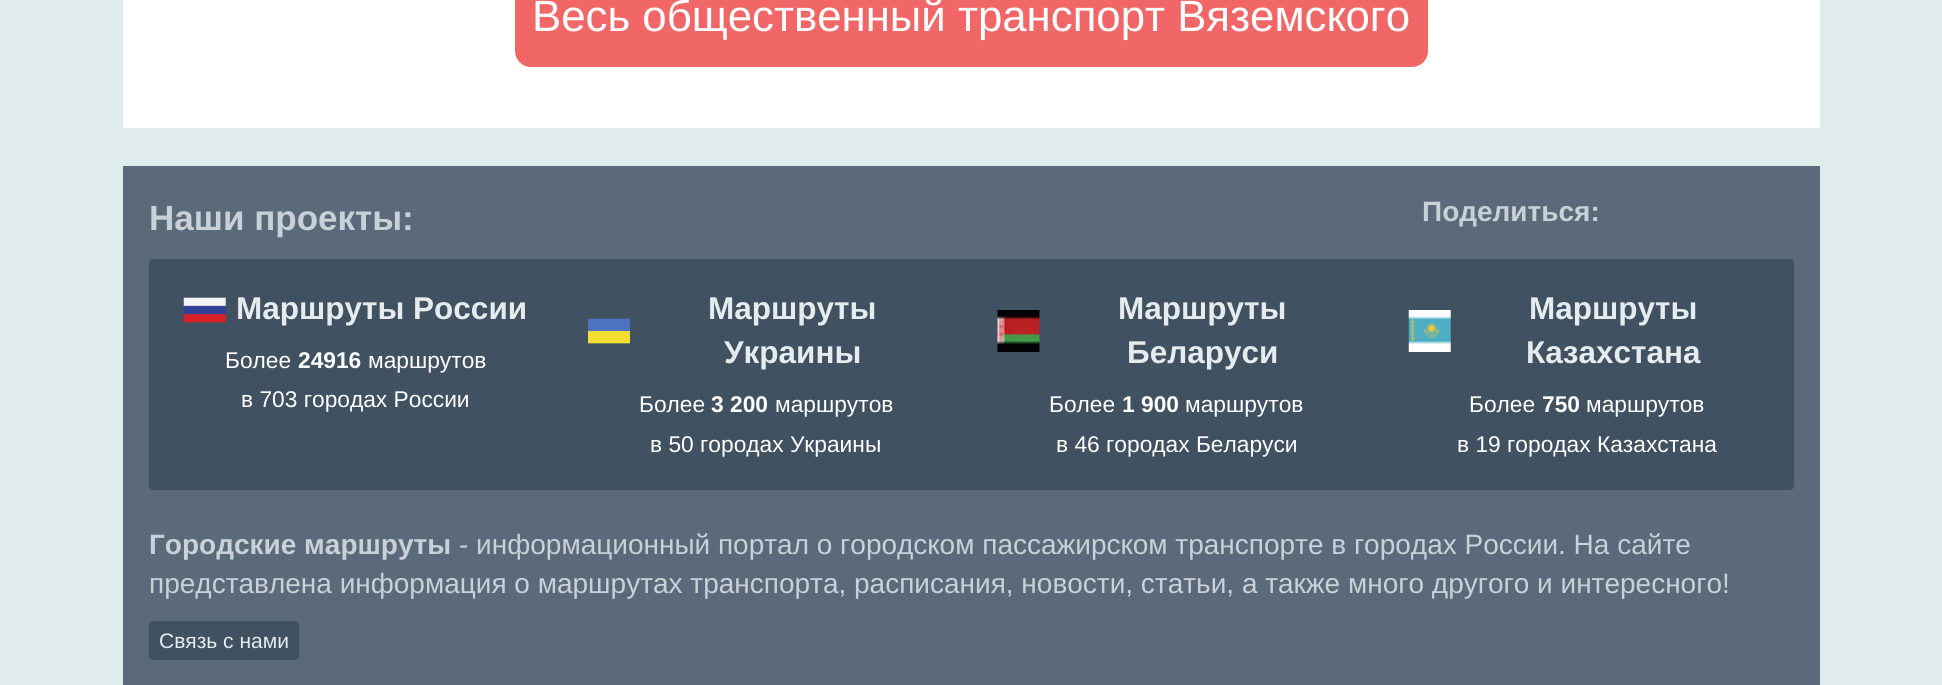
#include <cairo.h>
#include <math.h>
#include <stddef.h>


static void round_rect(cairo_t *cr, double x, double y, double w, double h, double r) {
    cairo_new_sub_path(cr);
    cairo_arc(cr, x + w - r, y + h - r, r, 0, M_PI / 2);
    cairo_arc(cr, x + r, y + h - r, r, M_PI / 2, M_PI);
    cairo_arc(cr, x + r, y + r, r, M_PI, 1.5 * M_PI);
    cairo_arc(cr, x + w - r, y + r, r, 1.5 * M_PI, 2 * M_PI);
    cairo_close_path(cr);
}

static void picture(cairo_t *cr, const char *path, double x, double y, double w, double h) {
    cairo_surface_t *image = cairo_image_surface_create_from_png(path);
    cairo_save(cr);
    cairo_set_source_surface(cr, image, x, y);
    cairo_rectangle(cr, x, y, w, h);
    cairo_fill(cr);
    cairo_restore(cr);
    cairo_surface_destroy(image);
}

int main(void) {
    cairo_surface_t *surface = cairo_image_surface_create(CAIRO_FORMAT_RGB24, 1942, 685);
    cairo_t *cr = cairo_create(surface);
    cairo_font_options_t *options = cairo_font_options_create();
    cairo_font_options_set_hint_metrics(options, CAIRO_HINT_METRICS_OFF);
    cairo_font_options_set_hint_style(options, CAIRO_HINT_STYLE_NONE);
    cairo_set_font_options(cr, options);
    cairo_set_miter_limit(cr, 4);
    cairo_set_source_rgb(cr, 0.878, 0.918, 0.925);
    cairo_paint(cr);
    cairo_set_source_rgb(cr, 1, 1, 1);
    cairo_rectangle(cr, 123, 0, 1697, 128);
    cairo_fill(cr);
    cairo_set_source_rgb(cr, 0.945, 0.404, 0.404);
    round_rect(cr, 515, -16, 913, 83, 16);
    cairo_fill(cr);
    cairo_select_font_face(cr, "Liberation Sans", CAIRO_FONT_SLANT_NORMAL, CAIRO_FONT_WEIGHT_NORMAL);
    cairo_set_font_size(cr, 43.75);
    cairo_set_source_rgb(cr, 1, 1, 1);
    cairo_move_to(cr, 532, 31);
    cairo_show_text(cr, "Весь общественный транспорт Вяземского");
    cairo_set_source_rgb(cr, 0.353, 0.416, 0.478);
    cairo_rectangle(cr, 123, 166, 1697, 519);
    cairo_fill(cr);
    cairo_select_font_face(cr, "Liberation Sans", CAIRO_FONT_SLANT_NORMAL, CAIRO_FONT_WEIGHT_BOLD);
    cairo_set_font_size(cr, 35);
    cairo_set_source_rgb(cr, 0.788, 0.816, 0.843);
    cairo_move_to(cr, 149, 230);
    cairo_show_text(cr, "Наши проекты:");
    cairo_set_font_size(cr, 28);
    cairo_move_to(cr, 1422, 221);
    cairo_show_text(cr, "Поделиться:");
    cairo_set_source_rgb(cr, 0.251, 0.318, 0.38);
    round_rect(cr, 149, 259, 1645, 231, 4);
    cairo_fill(cr);
    picture(cr, "img1.png", 183, 297, 43, 26);
    cairo_set_font_size(cr, 31.5);
    cairo_set_source_rgb(cr, 0.902, 0.918, 0.929);
    cairo_move_to(cr, 236, 319);
    cairo_show_text(cr, "Маршруты России");
    cairo_select_font_face(cr, "Liberation Sans", CAIRO_FONT_SLANT_NORMAL, CAIRO_FONT_WEIGHT_NORMAL);
    cairo_set_font_size(cr, 22.75);
    cairo_set_source_rgb(cr, 1, 1, 1);
    cairo_move_to(cr, 225, 368);
    cairo_show_text(cr, "Более");
    cairo_select_font_face(cr, "Liberation Sans", CAIRO_FONT_SLANT_NORMAL, CAIRO_FONT_WEIGHT_BOLD);
    cairo_move_to(cr, 298, 368);
    cairo_show_text(cr, "24916");
    cairo_select_font_face(cr, "Liberation Sans", CAIRO_FONT_SLANT_NORMAL, CAIRO_FONT_WEIGHT_NORMAL);
    cairo_move_to(cr, 368, 368);
    cairo_show_text(cr, "маршрутов");
    cairo_move_to(cr, 241, 407);
    cairo_show_text(cr, "в 703 городах России");
    cairo_select_font_face(cr, "Liberation Sans", CAIRO_FONT_SLANT_NORMAL, CAIRO_FONT_WEIGHT_BOLD);
    cairo_set_font_size(cr, 31.5);
    cairo_set_source_rgb(cr, 0.902, 0.918, 0.929);
    cairo_move_to(cr, 708, 319);
    cairo_show_text(cr, "Маршруты");
    picture(cr, "img2.png", 588, 318, 42, 26);
    cairo_move_to(cr, 724, 363);
    cairo_show_text(cr, "Украины");
    cairo_select_font_face(cr, "Liberation Sans", CAIRO_FONT_SLANT_NORMAL, CAIRO_FONT_WEIGHT_NORMAL);
    cairo_set_font_size(cr, 22.75);
    cairo_set_source_rgb(cr, 1, 1, 1);
    cairo_move_to(cr, 639, 412);
    cairo_show_text(cr, "Более");
    cairo_select_font_face(cr, "Liberation Sans", CAIRO_FONT_SLANT_NORMAL, CAIRO_FONT_WEIGHT_BOLD);
    cairo_move_to(cr, 711, 412);
    cairo_show_text(cr, "3 200");
    cairo_select_font_face(cr, "Liberation Sans", CAIRO_FONT_SLANT_NORMAL, CAIRO_FONT_WEIGHT_NORMAL);
    cairo_move_to(cr, 775, 412);
    cairo_show_text(cr, "маршрутов");
    cairo_move_to(cr, 650, 452);
    cairo_show_text(cr, "в 50 городах Украины");
    picture(cr, "img3.png", 997, 310, 43, 42);
    cairo_select_font_face(cr, "Liberation Sans", CAIRO_FONT_SLANT_NORMAL, CAIRO_FONT_WEIGHT_BOLD);
    cairo_set_font_size(cr, 31.5);
    cairo_set_source_rgb(cr, 0.902, 0.918, 0.929);
    cairo_move_to(cr, 1118, 319);
    cairo_show_text(cr, "Маршруты");
    cairo_move_to(cr, 1127, 363);
    cairo_show_text(cr, "Беларуси");
    cairo_select_font_face(cr, "Liberation Sans", CAIRO_FONT_SLANT_NORMAL, CAIRO_FONT_WEIGHT_NORMAL);
    cairo_set_font_size(cr, 22.75);
    cairo_set_source_rgb(cr, 1, 1, 1);
    cairo_move_to(cr, 1049, 412);
    cairo_show_text(cr, "Более");
    cairo_select_font_face(cr, "Liberation Sans", CAIRO_FONT_SLANT_NORMAL, CAIRO_FONT_WEIGHT_BOLD);
    cairo_move_to(cr, 1122, 412);
    cairo_show_text(cr, "1 900");
    cairo_select_font_face(cr, "Liberation Sans", CAIRO_FONT_SLANT_NORMAL, CAIRO_FONT_WEIGHT_NORMAL);
    cairo_move_to(cr, 1185, 412);
    cairo_show_text(cr, "маршрутов");
    cairo_move_to(cr, 1056, 452);
    cairo_show_text(cr, "в 46 городах Беларуси");
    picture(cr, "img4.png", 1408, 310, 43, 42);
    cairo_select_font_face(cr, "Liberation Sans", CAIRO_FONT_SLANT_NORMAL, CAIRO_FONT_WEIGHT_BOLD);
    cairo_set_font_size(cr, 31.5);
    cairo_set_source_rgb(cr, 0.902, 0.918, 0.929);
    cairo_move_to(cr, 1529, 319);
    cairo_show_text(cr, "Маршруты");
    cairo_move_to(cr, 1526, 363);
    cairo_show_text(cr, "Казахстана");
    cairo_select_font_face(cr, "Liberation Sans", CAIRO_FONT_SLANT_NORMAL, CAIRO_FONT_WEIGHT_NORMAL);
    cairo_set_font_size(cr, 22.75);
    cairo_set_source_rgb(cr, 1, 1, 1);
    cairo_move_to(cr, 1469, 412);
    cairo_show_text(cr, "Более");
    cairo_select_font_face(cr, "Liberation Sans", CAIRO_FONT_SLANT_NORMAL, CAIRO_FONT_WEIGHT_BOLD);
    cairo_move_to(cr, 1542, 412);
    cairo_show_text(cr, "750");
    cairo_select_font_face(cr, "Liberation Sans", CAIRO_FONT_SLANT_NORMAL, CAIRO_FONT_WEIGHT_NORMAL);
    cairo_move_to(cr, 1586, 412);
    cairo_show_text(cr, "маршрутов");
    cairo_move_to(cr, 1457, 452);
    cairo_show_text(cr, "в 19 городах Казахстана");
    cairo_select_font_face(cr, "Liberation Sans", CAIRO_FONT_SLANT_NORMAL, CAIRO_FONT_WEIGHT_BOLD);
    cairo_set_font_size(cr, 28);
    cairo_set_source_rgb(cr, 0.788, 0.816, 0.843);
    cairo_move_to(cr, 149, 554);
    cairo_show_text(cr, "Городские маршруты");
    cairo_select_font_face(cr, "Liberation Sans", CAIRO_FONT_SLANT_NORMAL, CAIRO_FONT_WEIGHT_NORMAL);
    cairo_move_to(cr, 459, 554);
    cairo_show_text(cr, "- информационный портал о городском пассажирском транспорте в городах России. На сайте");
    cairo_move_to(cr, 149, 593);
    cairo_show_text(cr, "представлена информация о маршрутах транспорта, расписания, новости, статьи, а также много другого и интересного!");
    cairo_set_source_rgb(cr, 0.251, 0.318, 0.38);
    round_rect(cr, 149, 621, 150, 39, 4);
    cairo_fill(cr);
    cairo_set_font_size(cr, 21);
    cairo_set_source_rgb(cr, 0.902, 0.918, 0.929);
    cairo_move_to(cr, 159, 648);
    cairo_show_text(cr, "Связь с нами");
    cairo_surface_write_to_png(surface, "page.png");
    cairo_font_options_destroy(options);
    cairo_destroy(cr);
    cairo_surface_destroy(surface);
    return 0;
}
